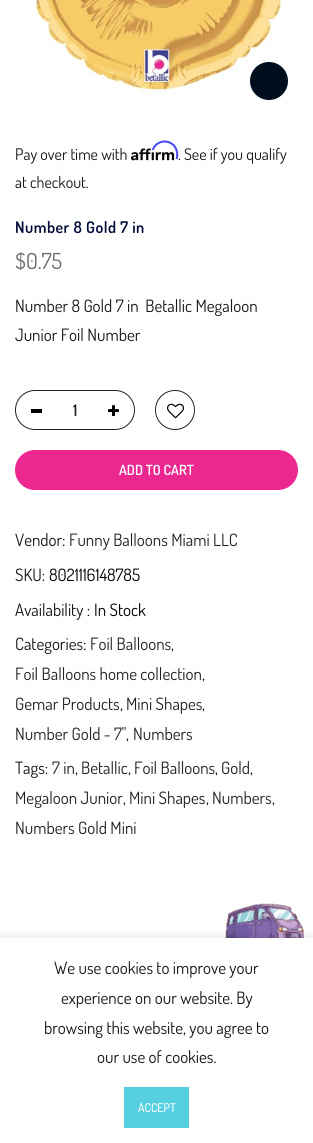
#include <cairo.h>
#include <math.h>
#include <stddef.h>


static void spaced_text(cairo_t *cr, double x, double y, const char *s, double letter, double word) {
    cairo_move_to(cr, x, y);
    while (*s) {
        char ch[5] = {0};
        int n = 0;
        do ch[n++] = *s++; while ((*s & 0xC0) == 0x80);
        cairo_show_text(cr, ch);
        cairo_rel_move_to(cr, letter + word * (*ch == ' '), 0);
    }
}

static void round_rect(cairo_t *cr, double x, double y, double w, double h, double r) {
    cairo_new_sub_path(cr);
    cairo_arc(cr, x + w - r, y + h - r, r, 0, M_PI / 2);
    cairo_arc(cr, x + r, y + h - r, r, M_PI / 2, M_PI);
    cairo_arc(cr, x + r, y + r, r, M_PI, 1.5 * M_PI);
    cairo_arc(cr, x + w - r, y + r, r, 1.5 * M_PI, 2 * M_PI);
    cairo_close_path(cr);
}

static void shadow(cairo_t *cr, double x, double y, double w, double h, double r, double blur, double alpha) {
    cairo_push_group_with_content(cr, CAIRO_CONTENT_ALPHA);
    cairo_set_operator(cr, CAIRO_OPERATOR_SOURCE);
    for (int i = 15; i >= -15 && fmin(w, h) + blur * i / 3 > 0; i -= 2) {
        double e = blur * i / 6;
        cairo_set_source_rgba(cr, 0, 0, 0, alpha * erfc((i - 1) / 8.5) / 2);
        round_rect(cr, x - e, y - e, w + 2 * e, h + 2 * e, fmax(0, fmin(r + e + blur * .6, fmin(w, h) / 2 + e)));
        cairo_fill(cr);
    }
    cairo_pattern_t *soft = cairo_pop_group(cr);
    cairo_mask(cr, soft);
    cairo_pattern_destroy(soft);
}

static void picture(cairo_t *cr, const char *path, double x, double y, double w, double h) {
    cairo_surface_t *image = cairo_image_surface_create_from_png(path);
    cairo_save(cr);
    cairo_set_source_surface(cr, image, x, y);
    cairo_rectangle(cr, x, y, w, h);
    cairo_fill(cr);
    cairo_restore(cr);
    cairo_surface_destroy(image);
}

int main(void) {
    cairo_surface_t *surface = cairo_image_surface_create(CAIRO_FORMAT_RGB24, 313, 1143);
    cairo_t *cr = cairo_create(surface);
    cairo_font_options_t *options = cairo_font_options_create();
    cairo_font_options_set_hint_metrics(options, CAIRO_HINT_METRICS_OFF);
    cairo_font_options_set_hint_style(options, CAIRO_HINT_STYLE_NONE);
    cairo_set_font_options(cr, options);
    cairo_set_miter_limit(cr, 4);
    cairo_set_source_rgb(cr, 1, 1, 1);
    cairo_paint(cr);
    picture(cr, "img1.png", 15, 0, 283, 110);
    cairo_set_source_rgb(cr, 0, 0.051, 0.114);
    cairo_arc(cr, 269, 81, 19, 0, 2 * M_PI);
    cairo_fill(cr);
    cairo_select_font_face(cr, "Dosis", CAIRO_FONT_SLANT_NORMAL, CAIRO_FONT_WEIGHT_NORMAL);
    cairo_set_font_size(cr, 16);
    cairo_set_source_rgb(cr, 0.09, 0.09, 0.09);
    cairo_move_to(cr, 15, 160);
    cairo_show_text(cr, "Pay over time with");
    picture(cr, "img3.png", 131, 148, 44, 13);
    cairo_move_to(cr, 178, 160);
    cairo_show_text(cr, ". See if you qualify");
    picture(cr, "img2.png", 151, 140, 28, 20);
    cairo_move_to(cr, 15, 188);
    cairo_show_text(cr, "at checkout.");
    cairo_select_font_face(cr, "Dosis SemiBold", CAIRO_FONT_SLANT_NORMAL, CAIRO_FONT_WEIGHT_NORMAL);
    cairo_set_source_rgb(cr, 0.004, 0.039, 0.216);
    spaced_text(cr, 15, 233, "Number 8 Gold 7 in", 0.5, 0);
    cairo_select_font_face(cr, "Dosis", CAIRO_FONT_SLANT_NORMAL, CAIRO_FONT_WEIGHT_NORMAL);
    cairo_set_font_size(cr, 22);
    cairo_set_source_rgb(cr, 0.412, 0.412, 0.412);
    cairo_move_to(cr, 15, 269);
    cairo_show_text(cr, "$0.75");
    cairo_set_font_size(cr, 17);
    cairo_set_source_rgb(cr, 0.09, 0.09, 0.09);
    cairo_move_to(cr, 15, 312);
    cairo_show_text(cr, "Number 8 Gold 7 in  Betallic Megaloon");
    cairo_move_to(cr, 15, 341);
    cairo_show_text(cr, "Junior Foil Number");
    round_rect(cr, 15.5, 390.5, 119, 39, 19.5);
    cairo_set_source_rgb(cr, 0.133, 0.133, 0.133);
    cairo_set_line_width(cr, 1);
    cairo_stroke(cr);
    cairo_select_font_face(cr, "Dosis SemiBold", CAIRO_FONT_SLANT_NORMAL, CAIRO_FONT_WEIGHT_NORMAL);
    cairo_set_font_size(cr, 16);
    cairo_move_to(cr, 73, 416);
    cairo_show_text(cr, "1");
    cairo_set_source_rgb(cr, 0, 0, 0);
    cairo_rectangle(cr, 31, 409, 11, 4);
    cairo_fill(cr);
    picture(cr, "img4.png", 108, 405, 11, 12);
    cairo_arc(cr, 175, 410, 19.5, 0, 2 * M_PI);
    cairo_set_source_rgb(cr, 0.133, 0.133, 0.133);
    cairo_stroke(cr);
    picture(cr, "img5.png", 167, 403, 17, 16);
    cairo_set_source_rgb(cr, 0.929, 0.153, 0.565);
    round_rect(cr, 15, 450, 283, 40, 20);
    cairo_fill(cr);
    cairo_set_font_size(cr, 14);
    cairo_set_source_rgb(cr, 1, 1, 1);
    cairo_move_to(cr, 119, 475);
    cairo_show_text(cr, "ADD TO CART");
    cairo_select_font_face(cr, "Dosis", CAIRO_FONT_SLANT_NORMAL, CAIRO_FONT_WEIGHT_NORMAL);
    cairo_set_font_size(cr, 17);
    cairo_set_source_rgb(cr, 0.09, 0.09, 0.09);
    cairo_move_to(cr, 15, 546);
    cairo_show_text(cr, "Vendor:");
    cairo_set_source_rgb(cr, 0.133, 0.133, 0.133);
    cairo_move_to(cr, 69, 546);
    cairo_show_text(cr, "Funny Balloons Miami LLC");
    cairo_set_source_rgb(cr, 0.09, 0.09, 0.09);
    cairo_move_to(cr, 15, 581);
    cairo_show_text(cr, "SKU:");
    cairo_set_source_rgb(cr, 0, 0, 0);
    cairo_move_to(cr, 49, 581);
    cairo_show_text(cr, "8021116148785");
    cairo_set_source_rgb(cr, 0.09, 0.09, 0.09);
    cairo_move_to(cr, 15, 616);
    cairo_show_text(cr, "Availability :");
    cairo_set_source_rgb(cr, 0, 0, 0);
    cairo_move_to(cr, 94, 616);
    cairo_show_text(cr, "In Stock");
    cairo_set_source_rgb(cr, 0.09, 0.09, 0.09);
    cairo_move_to(cr, 15, 650);
    cairo_show_text(cr, "Categories:");
    cairo_set_source_rgb(cr, 0.133, 0.133, 0.133);
    cairo_move_to(cr, 90, 650);
    cairo_show_text(cr, "Foil Balloons");
    cairo_set_source_rgb(cr, 0.09, 0.09, 0.09);
    cairo_move_to(cr, 171, 650);
    cairo_show_text(cr, ",");
    cairo_set_source_rgb(cr, 0.133, 0.133, 0.133);
    cairo_move_to(cr, 15, 680);
    cairo_show_text(cr, "Foil Balloons home collection");
    cairo_set_source_rgb(cr, 0.09, 0.09, 0.09);
    cairo_move_to(cr, 202, 680);
    cairo_show_text(cr, ",");
    cairo_set_source_rgb(cr, 0.133, 0.133, 0.133);
    cairo_move_to(cr, 15, 710);
    cairo_show_text(cr, "Gemar Products");
    cairo_set_source_rgb(cr, 0.09, 0.09, 0.09);
    cairo_move_to(cr, 120, 710);
    cairo_show_text(cr, ",");
    cairo_set_source_rgb(cr, 0.133, 0.133, 0.133);
    cairo_move_to(cr, 126, 710);
    cairo_show_text(cr, "Mini Shapes");
    cairo_set_source_rgb(cr, 0.09, 0.09, 0.09);
    cairo_move_to(cr, 202, 710);
    cairo_show_text(cr, ",");
    cairo_set_source_rgb(cr, 0.133, 0.133, 0.133);
    cairo_move_to(cr, 15, 740);
    cairo_show_text(cr, "Number Gold - 7\"");
    cairo_set_source_rgb(cr, 0.09, 0.09, 0.09);
    cairo_move_to(cr, 126, 740);
    cairo_show_text(cr, ",");
    cairo_set_source_rgb(cr, 0.133, 0.133, 0.133);
    cairo_move_to(cr, 133, 740);
    cairo_show_text(cr, "Numbers");
    cairo_set_source_rgb(cr, 0.09, 0.09, 0.09);
    cairo_move_to(cr, 15, 774);
    cairo_show_text(cr, "Tags:");
    cairo_set_source_rgb(cr, 0.133, 0.133, 0.133);
    cairo_move_to(cr, 52, 774);
    cairo_show_text(cr, "7 in");
    cairo_set_source_rgb(cr, 0.09, 0.09, 0.09);
    cairo_move_to(cr, 75, 774);
    cairo_show_text(cr, ",");
    cairo_set_source_rgb(cr, 0.133, 0.133, 0.133);
    cairo_move_to(cr, 81, 774);
    cairo_show_text(cr, "Betallic");
    cairo_set_source_rgb(cr, 0.09, 0.09, 0.09);
    cairo_move_to(cr, 128, 774);
    cairo_show_text(cr, ",");
    cairo_set_source_rgb(cr, 0.133, 0.133, 0.133);
    cairo_move_to(cr, 134, 774);
    cairo_show_text(cr, "Foil Balloons");
    cairo_set_source_rgb(cr, 0.09, 0.09, 0.09);
    cairo_move_to(cr, 215, 774);
    cairo_show_text(cr, ",");
    cairo_set_source_rgb(cr, 0.133, 0.133, 0.133);
    cairo_move_to(cr, 221, 774);
    cairo_show_text(cr, "Gold");
    cairo_set_source_rgb(cr, 0.09, 0.09, 0.09);
    cairo_move_to(cr, 250, 774);
    cairo_show_text(cr, ",");
    cairo_set_source_rgb(cr, 0.133, 0.133, 0.133);
    cairo_move_to(cr, 15, 804);
    cairo_show_text(cr, "Megaloon Junior");
    cairo_set_source_rgb(cr, 0.09, 0.09, 0.09);
    cairo_move_to(cr, 123, 804);
    cairo_show_text(cr, ",");
    cairo_set_source_rgb(cr, 0.133, 0.133, 0.133);
    cairo_move_to(cr, 129, 804);
    cairo_show_text(cr, "Mini Shapes");
    cairo_set_source_rgb(cr, 0.09, 0.09, 0.09);
    cairo_move_to(cr, 206, 804);
    cairo_show_text(cr, ",");
    cairo_set_source_rgb(cr, 0.133, 0.133, 0.133);
    cairo_move_to(cr, 212, 804);
    cairo_show_text(cr, "Numbers");
    cairo_set_source_rgb(cr, 0.09, 0.09, 0.09);
    cairo_move_to(cr, 272, 804);
    cairo_show_text(cr, ",");
    cairo_set_source_rgb(cr, 0.133, 0.133, 0.133);
    cairo_move_to(cr, 15, 834);
    cairo_show_text(cr, "Numbers Gold Mini");
    picture(cr, "img6.png", 225, 903, 79, 35);
    cairo_set_source_rgb(cr, 0, 0, 0);
    shadow(cr, 0, 938, 313, 205, 0, 4.5, 0.14);
    cairo_set_source_rgb(cr, 1, 1, 1);
    cairo_rectangle(cr, 0, 938, 313, 205);
    cairo_fill(cr);
    cairo_set_source_rgb(cr, 0.09, 0.09, 0.09);
    cairo_move_to(cr, 54, 974);
    cairo_show_text(cr, "We use cookies to improve your");
    cairo_move_to(cr, 61, 1004);
    cairo_show_text(cr, "experience on our website. By");
    cairo_move_to(cr, 44, 1034);
    cairo_show_text(cr, "browsing this website, you agree to");
    cairo_move_to(cr, 97, 1063);
    cairo_show_text(cr, "our use of cookies.");
    cairo_set_source_rgb(cr, 0.337, 0.812, 0.882);
    cairo_rectangle(cr, 124, 1087, 65, 41);
    cairo_fill(cr);
    cairo_select_font_face(cr, "Dosis Medium", CAIRO_FONT_SLANT_NORMAL, CAIRO_FONT_WEIGHT_NORMAL);
    cairo_set_font_size(cr, 12);
    cairo_set_source_rgb(cr, 1, 1, 1);
    cairo_move_to(cr, 138, 1112);
    cairo_show_text(cr, "ACCEPT");
    cairo_surface_write_to_png(surface, "page.png");
    cairo_font_options_destroy(options);
    cairo_destroy(cr);
    cairo_surface_destroy(surface);
    return 0;
}
